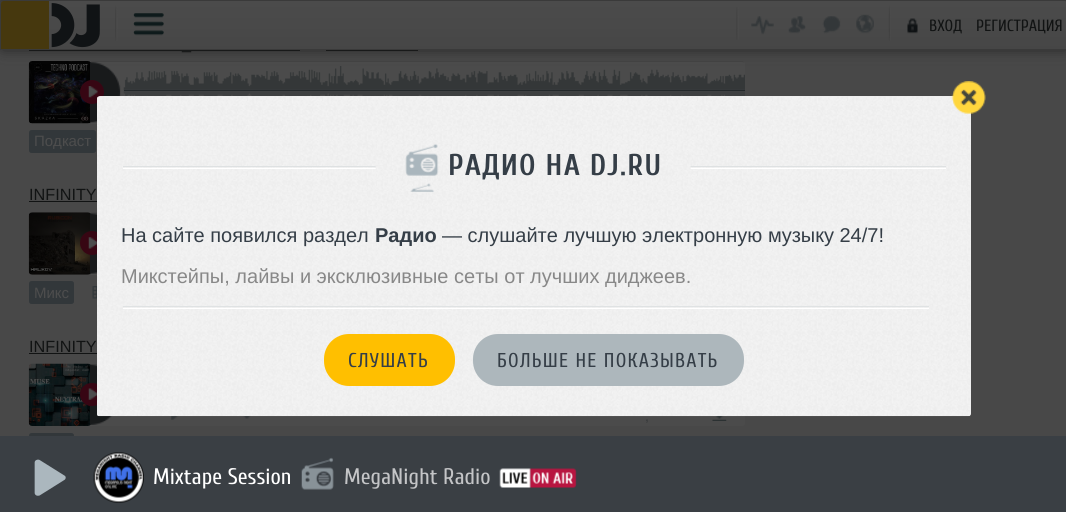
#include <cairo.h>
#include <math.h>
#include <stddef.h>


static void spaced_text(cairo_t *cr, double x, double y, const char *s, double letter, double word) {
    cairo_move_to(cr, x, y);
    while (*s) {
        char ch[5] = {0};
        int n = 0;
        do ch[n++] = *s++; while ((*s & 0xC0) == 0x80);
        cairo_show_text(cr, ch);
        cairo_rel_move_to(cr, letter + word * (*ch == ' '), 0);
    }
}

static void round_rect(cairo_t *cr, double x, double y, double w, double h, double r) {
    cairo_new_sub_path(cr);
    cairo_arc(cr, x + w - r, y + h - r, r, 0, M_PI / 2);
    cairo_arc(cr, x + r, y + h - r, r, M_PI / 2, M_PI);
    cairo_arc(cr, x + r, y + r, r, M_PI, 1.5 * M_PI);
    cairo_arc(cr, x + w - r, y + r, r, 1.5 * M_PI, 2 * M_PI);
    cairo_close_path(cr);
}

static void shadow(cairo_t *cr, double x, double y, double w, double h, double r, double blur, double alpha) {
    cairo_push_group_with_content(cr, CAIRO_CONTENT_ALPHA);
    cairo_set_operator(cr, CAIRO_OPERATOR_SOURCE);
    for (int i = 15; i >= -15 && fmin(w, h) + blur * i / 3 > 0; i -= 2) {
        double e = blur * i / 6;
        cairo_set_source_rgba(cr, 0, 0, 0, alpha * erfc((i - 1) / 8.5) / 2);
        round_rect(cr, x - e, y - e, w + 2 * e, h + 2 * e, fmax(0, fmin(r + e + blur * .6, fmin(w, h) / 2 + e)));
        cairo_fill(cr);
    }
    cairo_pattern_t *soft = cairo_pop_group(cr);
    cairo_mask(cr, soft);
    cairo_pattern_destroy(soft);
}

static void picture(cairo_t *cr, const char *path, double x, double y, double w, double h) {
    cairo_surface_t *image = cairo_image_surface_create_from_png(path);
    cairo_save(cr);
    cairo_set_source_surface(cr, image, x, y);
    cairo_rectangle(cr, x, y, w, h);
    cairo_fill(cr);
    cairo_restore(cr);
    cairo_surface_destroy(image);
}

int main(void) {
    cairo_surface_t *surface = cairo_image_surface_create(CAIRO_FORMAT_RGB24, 1066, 512);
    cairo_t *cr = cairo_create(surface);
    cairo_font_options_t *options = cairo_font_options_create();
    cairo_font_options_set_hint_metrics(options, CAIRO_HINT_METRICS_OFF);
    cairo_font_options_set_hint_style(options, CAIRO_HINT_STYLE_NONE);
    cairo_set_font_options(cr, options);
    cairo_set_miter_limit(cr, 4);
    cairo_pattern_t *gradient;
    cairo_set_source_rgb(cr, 0.282, 0.282, 0.282);
    cairo_paint(cr);
    cairo_set_source_rgb(cr, 0.067, 0.075, 0.078);
    cairo_rectangle(cr, 326, 50, 92, 1);
    cairo_fill(cr);
    cairo_rectangle(cr, 29, 50, 271, 1);
    cairo_fill(cr);
    picture(cr, "img11.png", 28, 61, 63, 63);
    cairo_set_source_rgb(cr, 0.294, 0.294, 0.294);
    cairo_new_path(cr);
    cairo_move_to(cr, 91, 61);
    cairo_line_to(cr, 742.5, 61);
    cairo_curve_to(cr, 744, 61, 745, 62, 745, 63.5);
    cairo_line_to(cr, 745, 121.5);
    cairo_curve_to(cr, 745, 123, 744, 124, 742.5, 124);
    cairo_line_to(cr, 91, 124);
    cairo_close_path(cr);
    cairo_fill(cr);
    cairo_set_source_rgb(cr, 0.263, 0.263, 0.263);
    cairo_new_path(cr);
    cairo_move_to(cr, 91, 61);
    cairo_line_to(cr, 743, 61);
    cairo_curve_to(cr, 744, 62, 745, 63, 745, 64);
    cairo_curve_to(cr, 745, 63, 744, 62, 742, 62);
    cairo_line_to(cr, 91, 62);
    cairo_close_path(cr);
    cairo_fill(cr);
    picture(cr, "img12.png", 90, 62, 31, 61);
    picture(cr, "img14.png", 123, 66, 622, 30);
    cairo_set_source_rgb(cr, 0.141, 0.141, 0.141);
    shadow(cr, -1, -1, 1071, 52, 5, 6, 0.8);
    cairo_save(cr);
    cairo_new_path(cr);
    cairo_move_to(cr, 4, 0);
    cairo_line_to(cr, 1065, 0);
    cairo_curve_to(cr, 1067, 0, 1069, 2, 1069, 4);
    cairo_line_to(cr, 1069, 50);
    cairo_line_to(cr, 0, 50);
    cairo_line_to(cr, 0, 4);
    cairo_curve_to(cr, 0, 2, 2, 0, 4, 0);
    cairo_close_path(cr);
    cairo_clip(cr);
    gradient = cairo_pattern_create_linear(534, 1.2, 534, 49);
    cairo_pattern_add_color_stop_rgba(gradient, 0, 0.294, 0.294, 0.294, 1);
    cairo_pattern_add_color_stop_rgba(gradient, 0.5, 0.286, 0.286, 0.286, 1);
    cairo_pattern_add_color_stop_rgba(gradient, 1, 0.275, 0.275, 0.275, 1);
    cairo_set_source(cr, gradient);
    cairo_pattern_destroy(gradient);
    cairo_rectangle(cr, 0, 1, 1066, 48);
    cairo_fill(cr);
    cairo_restore(cr);
    cairo_new_path(cr);
    cairo_move_to(cr, 4, 0.5);
    cairo_line_to(cr, 1065, 0.5);
    cairo_curve_to(cr, 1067, 0.5, 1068.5, 2, 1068.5, 4);
    cairo_line_to(cr, 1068.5, 49.5);
    cairo_line_to(cr, 0.5, 49.5);
    cairo_line_to(cr, 0.5, 4);
    cairo_curve_to(cr, 0.5, 2, 2, 0.5, 4, 0.5);
    cairo_close_path(cr);
    cairo_set_source_rgb(cr, 0.227, 0.227, 0.227);
    cairo_set_line_width(cr, 1);
    cairo_stroke(cr);
    cairo_set_source_rgb(cr, 0.275, 0.22, 0.055);
    cairo_new_path(cr);
    cairo_move_to(cr, 3.5, 1);
    cairo_line_to(cr, 49, 1);
    cairo_line_to(cr, 49, 49);
    cairo_line_to(cr, 1, 49);
    cairo_line_to(cr, 1, 3.5);
    cairo_curve_to(cr, 1, 2, 2, 1, 3.5, 1);
    cairo_close_path(cr);
    cairo_fill(cr);
    picture(cr, "img1.png", 51, 3, 49, 45);
    picture(cr, "img2.png", 115, 5, 3, 36);
    picture(cr, "img3.png", 133, 13, 31, 23);
    picture(cr, "img4.png", 736, 7, 3, 33);
    picture(cr, "img5.png", 751, 16, 23, 19);
    picture(cr, "img6.png", 788, 16, 18, 18);
    picture(cr, "img7.png", 822, 16, 19, 18);
    picture(cr, "img8.png", 856, 14, 18, 20);
    picture(cr, "img9.png", 888, 5, 3, 36);
    picture(cr, "img10.png", 907, 18, 11, 16);
    cairo_select_font_face(cr, "Cuprum", CAIRO_FONT_SLANT_NORMAL, CAIRO_FONT_WEIGHT_NORMAL);
    cairo_set_font_size(cr, 16.25);
    cairo_set_source_rgb(cr, 0.067, 0.075, 0.078);
    cairo_move_to(cr, 929, 31);
    cairo_show_text(cr, "ВХОД");
    cairo_move_to(cr, 976, 31);
    cairo_show_text(cr, "РЕГИСТРАЦИЯ");
    cairo_select_font_face(cr, "Liberation Sans", CAIRO_FONT_SLANT_NORMAL, CAIRO_FONT_WEIGHT_NORMAL);
    cairo_move_to(cr, 182, 49);
    cairo_show_text(cr, "_");
    cairo_set_source_rgb(cr, 0.216, 0.024, 0.075);
    cairo_new_path(cr);
    cairo_arc(cr, 92, 92, 12, 0, 2 * M_PI);
    cairo_fill(cr);
    picture(cr, "img13.png", 88, 86, 10, 12);
    cairo_set_source_rgb(cr, 0.137, 0.157, 0.165);
    cairo_rectangle(cr, 124, 90, 621, 1);
    cairo_fill(cr);
    cairo_set_source_rgb(cr, 0.196, 0.216, 0.227);
    round_rect(cr, 29, 130, 67, 23, 2.5);
    cairo_fill(cr);
    cairo_set_font_size(cr, 15);
    cairo_set_source_rgb(cr, 0.302, 0.302, 0.302);
    cairo_move_to(cr, 34, 146);
    cairo_show_text(cr, "Подкаст");
    cairo_set_font_size(cr, 16.25);
    cairo_set_source_rgb(cr, 0.067, 0.075, 0.078);
    cairo_move_to(cr, 29, 200);
    cairo_show_text(cr, "INFINITY");
    cairo_rectangle(cr, 29, 201, 68, 1);
    cairo_fill(cr);
    picture(cr, "img15.png", 28, 212, 63, 63);
    cairo_set_source_rgb(cr, 0.294, 0.294, 0.294);
    cairo_rectangle(cr, 91, 214, 6, 1);
    cairo_fill(cr);
    cairo_set_source_rgb(cr, 0.263, 0.263, 0.263);
    cairo_new_path(cr);
    cairo_move_to(cr, 91, 212);
    cairo_line_to(cr, 744, 212);
    cairo_line_to(cr, 745, 215);
    cairo_curve_to(cr, 745, 214, 744, 214, 742, 214);
    cairo_line_to(cr, 91, 214);
    cairo_close_path(cr);
    cairo_fill(cr);
    cairo_set_source_rgb(cr, 0.302, 0.302, 0.302);
    cairo_new_path(cr);
    cairo_move_to(cr, 742, 275);
    cairo_curve_to(cr, 744, 275, 745, 274, 745, 272);
    cairo_curve_to(cr, 745, 273, 744, 274, 742, 274);
    cairo_line_to(cr, 91, 274);
    cairo_line_to(cr, 91, 275);
    cairo_close_path(cr);
    cairo_fill(cr);
    picture(cr, "img16.png", 90, 213, 7, 61);
    cairo_set_source_rgb(cr, 0.216, 0.024, 0.075);
    cairo_arc(cr, 92, 243, 12, 0, 2 * M_PI);
    cairo_fill(cr);
    picture(cr, "img17.png", 88, 237, 9, 12);
    cairo_set_source_rgb(cr, 0.196, 0.216, 0.227);
    round_rect(cr, 29, 281, 45, 23, 2.5);
    cairo_fill(cr);
    cairo_set_font_size(cr, 15);
    cairo_set_source_rgb(cr, 0.302, 0.302, 0.302);
    cairo_move_to(cr, 34, 298);
    cairo_show_text(cr, "Микс");
    picture(cr, "img18.png", 92, 286, 5, 13);
    cairo_set_font_size(cr, 16.25);
    cairo_set_source_rgb(cr, 0.067, 0.075, 0.078);
    cairo_move_to(cr, 29, 352);
    cairo_show_text(cr, "INFINITY");
    cairo_rectangle(cr, 29, 353, 68, 1);
    cairo_fill(cr);
    cairo_set_source_rgb(cr, 0.294, 0.294, 0.294);
    cairo_new_path(cr);
    cairo_move_to(cr, 91, 364);
    cairo_line_to(cr, 742.5, 364);
    cairo_curve_to(cr, 744, 364, 745, 365, 745, 366.5);
    cairo_line_to(cr, 745, 423.5);
    cairo_curve_to(cr, 745, 425, 744, 426, 742.5, 426);
    cairo_line_to(cr, 91, 426);
    cairo_close_path(cr);
    cairo_fill(cr);
    cairo_set_source_rgb(cr, 0.263, 0.263, 0.263);
    cairo_new_path(cr);
    cairo_move_to(cr, 91, 365);
    cairo_line_to(cr, 91, 364);
    cairo_line_to(cr, 742, 364);
    cairo_curve_to(cr, 744, 364, 745, 365, 745, 366);
    cairo_line_to(cr, 742, 365);
    cairo_close_path(cr);
    cairo_fill(cr);
    picture(cr, "img19.png", 28, 363, 64, 63);
    picture(cr, "img20.png", 90, 364, 23, 61);
    cairo_set_source_rgb(cr, 0.216, 0.024, 0.075);
    round_rect(cr, 80, 383, 24, 23, 11.5);
    cairo_fill(cr);
    picture(cr, "img21.png", 88, 388, 9, 12);
    picture(cr, "img22.png", 171, 416, 8, 4);
    picture(cr, "img23.png", 242, 416, 9, 3);
    cairo_set_font_size(cr, 14);
    cairo_set_source_rgb(cr, 0.204, 0.216, 0.22);
    cairo_move_to(cr, 645, 421);
    cairo_show_text(cr, ",");
    picture(cr, "img24.png", 712, 416, 15, 5);
    cairo_set_source_rgb(cr, 0.196, 0.216, 0.227);
    round_rect(cr, 29, 433, 45, 22, 2.5);
    cairo_fill(cr);
    cairo_set_source_rgb(cr, 0.937, 0.937, 0.937);
    round_rect(cr, 98, 96, 873, 320, 2.5);
    cairo_fill(cr);
    picture(cr, "img25.png", 97, 96, 874, 321);
    picture(cr, "img26.png", 951, 81, 35, 33);
    cairo_set_source_rgb(cr, 0.871, 0.882, 0.886);
    cairo_rectangle(cr, 123, 166, 823, 1);
    cairo_fill(cr);
    cairo_set_source_rgb(cr, 1, 1, 1);
    cairo_rectangle(cr, 123, 168, 823, 1);
    cairo_fill(cr);
    picture(cr, "img27.png", 375, 144, 316, 47);
    picture(cr, "img28.png", 405, 144, 34, 48);
    cairo_select_font_face(cr, "Cuprum", CAIRO_FONT_SLANT_NORMAL, CAIRO_FONT_WEIGHT_BOLD);
    cairo_set_font_size(cr, 30);
    cairo_set_source_rgb(cr, 0.208, 0.243, 0.278);
    spaced_text(cr, 448, 175, "РАДИО НА DJ.RU", 1.25, 0);
    cairo_select_font_face(cr, "Liberation Sans", CAIRO_FONT_SLANT_NORMAL, CAIRO_FONT_WEIGHT_NORMAL);
    cairo_set_font_size(cr, 20);
    cairo_move_to(cr, 121, 242);
    cairo_show_text(cr, "На сайте появился раздел");
    cairo_select_font_face(cr, "Liberation Sans", CAIRO_FONT_SLANT_NORMAL, CAIRO_FONT_WEIGHT_BOLD);
    cairo_move_to(cr, 375, 242);
    cairo_show_text(cr, "Радио");
    cairo_select_font_face(cr, "Liberation Sans", CAIRO_FONT_SLANT_NORMAL, CAIRO_FONT_WEIGHT_NORMAL);
    cairo_move_to(cr, 442, 242);
    cairo_show_text(cr, "— слушайте лучшую электронную музыку 24/7!");
    cairo_set_source_rgb(cr, 0.533, 0.533, 0.533);
    cairo_move_to(cr, 121, 283);
    cairo_show_text(cr, "Микстейпы, лайвы и эксклюзивные сеты от лучших диджеев.");
    cairo_set_source_rgb(cr, 0.875, 0.886, 0.89);
    cairo_rectangle(cr, 123, 306, 806, 1);
    cairo_fill(cr);
    cairo_set_source_rgb(cr, 1, 1, 1);
    cairo_rectangle(cr, 123, 308, 806, 1);
    cairo_fill(cr);
    cairo_set_source_rgb(cr, 1, 0.749, 0);
    round_rect(cr, 324, 334, 131, 52, 25);
    cairo_fill(cr);
    cairo_select_font_face(cr, "Cuprum", CAIRO_FONT_SLANT_NORMAL, CAIRO_FONT_WEIGHT_NORMAL);
    cairo_set_source_rgb(cr, 0.208, 0.243, 0.278);
    spaced_text(cr, 348, 367, "СЛУШАТЬ", 1.25, 0);
    cairo_set_source_rgb(cr, 0.678, 0.718, 0.737);
    round_rect(cr, 473, 334, 271, 52, 25);
    cairo_fill(cr);
    cairo_set_source_rgb(cr, 0.208, 0.243, 0.278);
    spaced_text(cr, 497, 367, "БОЛЬШЕ НЕ ПОКАЗЫВАТЬ", 1.25, 0);
    cairo_set_source_rgb(cr, 0.227, 0.247, 0.267);
    cairo_rectangle(cr, 0, 436, 1066, 76);
    cairo_fill(cr);
    picture(cr, "img29.png", 34, 459, 32, 37);
    picture(cr, "img30.png", 93, 452, 51, 51);
    cairo_set_font_size(cr, 22.5);
    cairo_set_source_rgb(cr, 1, 1, 1);
    cairo_move_to(cr, 153, 484);
    cairo_show_text(cr, "Mixtape Session");
    picture(cr, "img31.png", 301, 457, 33, 33);
    cairo_set_source_rgb(cr, 0.769, 0.773, 0.78);
    cairo_move_to(cr, 344, 484);
    cairo_show_text(cr, "MegaNight Radio");
    picture(cr, "img32.png", 499, 468, 78, 20);
    cairo_surface_write_to_png(surface, "page.png");
    cairo_font_options_destroy(options);
    cairo_destroy(cr);
    cairo_surface_destroy(surface);
    return 0;
}
